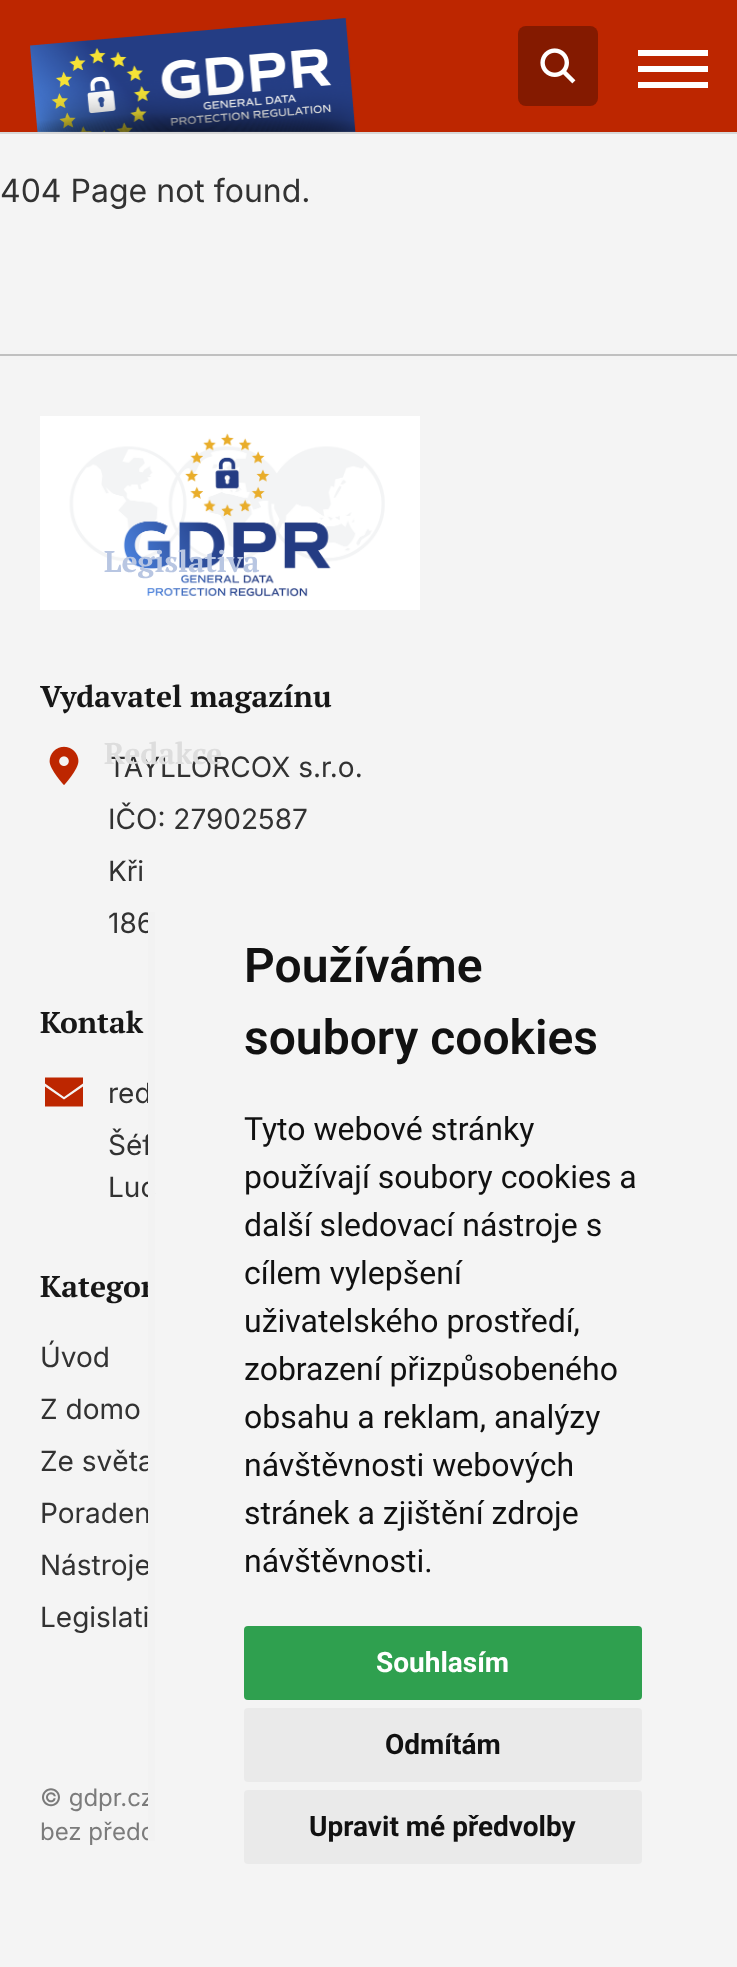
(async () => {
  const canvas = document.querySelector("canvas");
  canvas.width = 737;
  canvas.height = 1967;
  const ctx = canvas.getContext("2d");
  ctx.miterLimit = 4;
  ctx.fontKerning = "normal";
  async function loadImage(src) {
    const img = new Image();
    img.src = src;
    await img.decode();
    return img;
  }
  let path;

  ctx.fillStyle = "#f4f4f4";
  ctx.fillRect(0, 0, 737, 1967);
  ctx.fillStyle = "#bd2600";
  ctx.fillRect(0, 0, 737, 132);
  ctx.fillStyle = "#d7d7d7";
  ctx.fillRect(0, 132, 737, 2);
  ctx.drawImage(await loadImage("img/1.png"), 30, 18, 326, 114);
  ctx.fillStyle = "#841a00";
  ctx.beginPath();
  ctx.roundRect(518, 26, 80, 80, 8);
  ctx.fill();
  ctx.drawImage(await loadImage("img/2.png"), 540, 48, 36, 36);
  for (const [x, y, w, h, color] of [
    [638, 50, 70, 6, "#ffffff"],
    [638, 66, 70, 6, "#ffffff"],
    [638, 82, 70, 6, "#ffffff"],
    [0, 354, 737, 2, "#c0c0c0"],
  ]) {
    ctx.fillStyle = color;
    ctx.fillRect(x, y, w, h);
  }
  ctx.drawImage(await loadImage("img/3.png"), 40, 416, 380, 194);
  ctx.drawImage(await loadImage("img/4.png"), 49, 746, 30, 39);
  ctx.fillStyle = "#bd2600";
  path = new Path2D("M45 1077.5H83V1083.5L64 1097L45 1083.5ZM45 1106.5V1086.5L64 1099.5L83 1086.5V1106.5Z");
  ctx.fill(path);
  ctx.fillStyle = "#2fa04f";
  ctx.beginPath();
  ctx.roundRect(244, 1626, 398, 74, 4);
  ctx.fill();
  ctx.fillStyle = "#eaeaea";
  ctx.beginPath();
  ctx.roundRect(244, 1708, 398, 74, 4);
  ctx.fill();
  ctx.beginPath();
  ctx.roundRect(244, 1790, 398, 74, 4);
  ctx.fill();
  ctx.font = "32px Inter";
  ctx.fillStyle = "#323232";
  ctx.fillText("404 Page not found.", 0, 202);
  ctx.font = "bold 30px PT Serif";
  ctx.fillStyle = "#b8c6e2";
  ctx.fillText("Legislativa", 104, 572);
  ctx.fillStyle = "#171717";
  ctx.fillText("Vydavatel magazínu", 40, 707);
  ctx.font = "28px Inter";
  ctx.fillStyle = "#323232";
  ctx.fillText("TAYLLORCOX s.r.o.", 108, 777);
  ctx.font = "bold 30px PT Serif";
  ctx.fillStyle = "#dddddd";
  ctx.fillText("Redakce", 104, 764);
  ctx.font = "28px Inter";
  ctx.fillStyle = "#323232";
  for (const [text, x, y] of [
    ["IČO: 27902587", 108, 829],
    ["Kři", 108, 881],
    ["186", 108, 933],
  ]) {
    ctx.fillText(text, x, y);
  }
  ctx.font = "bold 30px PT Serif";
  ctx.fillStyle = "#171717";
  ctx.fillText("Kontak", 40, 1033);
  ctx.font = "28px Inter";
  ctx.fillStyle = "#323232";
  for (const [text, x, y] of [
    ["red", 108, 1103],
    ["Šéf", 108, 1155],
    ["Luc", 108, 1197],
  ]) {
    ctx.fillText(text, x, y);
  }
  ctx.font = "bold 30px PT Serif";
  ctx.fillStyle = "#171717";
  ctx.fillText("Kategor", 40, 1297);
  ctx.font = "28px Inter";
  ctx.fillStyle = "#323232";
  for (const [text, x, y] of [
    ["Úvod", 40, 1367],
    ["Z domo", 40, 1419],
    ["Ze světa", 40, 1471],
    ["Poraden", 40, 1523],
    ["Nástroje", 40, 1575],
    ["Legislati", 40, 1627],
  ]) {
    ctx.fillText(text, x, y);
  }
  ctx.font = "24px Inter";
  ctx.fillStyle = "#7b7b7b";
  ctx.fillText("© gdpr.cz", 40, 1806);
  ctx.fillText("bez předc", 40, 1840);
  ctx.fillStyle = "#f2f2f2";
  ctx.fillRect(148, 912, 7, 929);
  ctx.font = "600 48px Roboto";
  ctx.fillStyle = "#111111";
  ctx.fillText("Používáme", 244, 982);
  ctx.fillText("soubory cookies", 244, 1054);
  ctx.font = "32px Roboto";
  for (const [text, x, y] of [
    ["Tyto webové stránky", 244, 1140],
    ["používají soubory cookies a", 244, 1188],
    ["další sledovací nástroje s", 244, 1236],
    ["cílem vylepšení", 244, 1284],
    ["uživatelského prostředí,", 244, 1332],
    ["zobrazení přizpůsobeného", 244, 1380],
    ["obsahu a reklam, analýzy", 244, 1428],
    ["návštěvnosti webových", 244, 1476],
    ["stránek a zjištění zdroje", 244, 1524],
    ["návštěvnosti.", 244, 1572],
  ]) {
    ctx.fillText(text, x, y);
  }
  ctx.font = "bold 28px Roboto";
  ctx.fillStyle = "#ffffff";
  ctx.fillText("Souhlasím", 376, 1672);
  ctx.fillStyle = "#111111";
  ctx.fillText("Odmítám", 385, 1754);
  ctx.fillText("Upravit mé předvolby", 309, 1836);
})();
